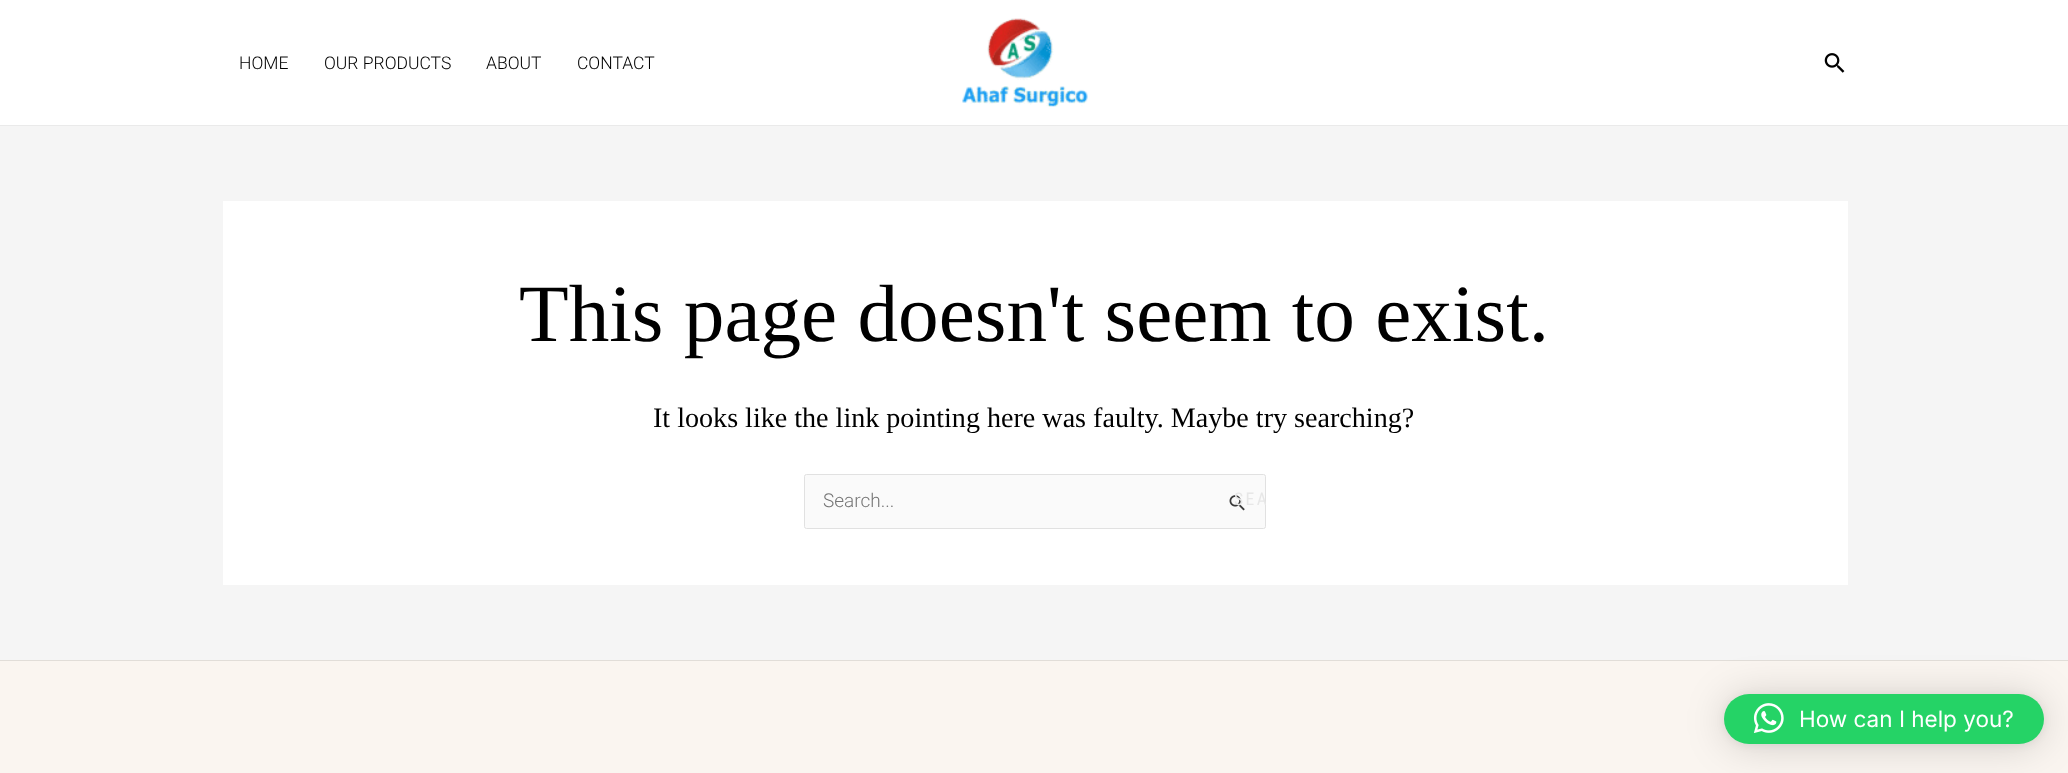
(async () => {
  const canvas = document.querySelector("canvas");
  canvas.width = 2068;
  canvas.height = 773;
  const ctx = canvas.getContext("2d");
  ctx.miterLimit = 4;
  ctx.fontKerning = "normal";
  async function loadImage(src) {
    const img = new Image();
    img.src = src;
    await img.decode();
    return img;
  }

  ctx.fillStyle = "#f5f5f5";
  ctx.fillRect(0, 0, 2068, 773);
  ctx.fillStyle = "#ffffff";
  ctx.fillRect(0, 0, 2068, 125);
  ctx.fillStyle = "#eaeaea";
  ctx.fillRect(0, 125, 2068, 1);
  ctx.drawImage(await loadImage("img/1.png"), 962, 18, 126, 89);
  ctx.drawImage(await loadImage("img/2.png"), 1824, 53, 21, 20);
  ctx.fillStyle = "#ffffff";
  ctx.fillRect(223, 201, 1625, 384);
  ctx.fillStyle = "#fafafa";
  ctx.beginPath();
  ctx.roundRect(804.5, 474.5, 461, 54, 2);
  ctx.fill();
  ctx.strokeStyle = "#e1e1e1";
  ctx.stroke();
  ctx.drawImage(await loadImage("img/3.png"), 1229, 495, 16, 16);
  ctx.fillStyle = "#faf5f0";
  ctx.fillRect(0, 661, 2068, 112);
  ctx.fillStyle = "#e1ddd8";
  ctx.fillRect(0, 660, 2068, 1);
  ctx.fillStyle = "rgba(0, 0, 0, 0.16)";
  ctx.filter = "blur(20px)";
  ctx.beginPath();
  ctx.roundRect(1724, 696, 320, 50, 25);
  ctx.fill();
  ctx.filter = "none";
  ctx.fillStyle = "rgba(0, 0, 0, 0.06)";
  ctx.filter = "blur(4px)";
  ctx.beginPath();
  ctx.roundRect(1724, 695, 320, 50, 25);
  ctx.fill();
  ctx.filter = "none";
  ctx.fillStyle = "#25d366";
  ctx.beginPath();
  ctx.roundRect(1724, 694, 320, 50, 25);
  ctx.fill();
  ctx.drawImage(await loadImage("img/4.png"), 1753, 703, 31, 30);
  ctx.font = "300 17.5px Roboto";
  ctx.fillStyle = "#000000";
  for (const [text, x, y] of [
    ["HOME", 239, 69],
    ["OUR PRODUCTS", 324, 69],
    ["ABOUT", 486, 69],
    ["CONTACT", 577, 69],
  ]) {
    ctx.fillText(text, x, y);
  }
  ctx.font = "81.25px Liberation Serif";
  ctx.fillText("This page doesn't seem to exist.", 519, 341);
  ctx.font = "28.1px Liberation Serif";
  ctx.fillText("It looks like the link pointing here was faulty. Maybe try searching?", 653, 427);
  ctx.font = "300 19px Roboto";
  ctx.fillStyle = "#757575";
  ctx.fillText("Search...", 823, 507);
  ctx.save();
  ctx.beginPath();
  ctx.roundRect(1210, 474, 56, 50, 2.5);
  ctx.clip();
  ctx.letterSpacing = "2.5px";
  ctx.font = "17.5px Roboto Condensed";
  ctx.fillStyle = "#e7e7e7";
  ctx.fillText("SEA", 1234, 505);
  ctx.restore();
  ctx.font = "22.5px Inter";
  ctx.fillStyle = "#ffffff";
  ctx.fillText("How can I help you?", 1799, 727);
})();
